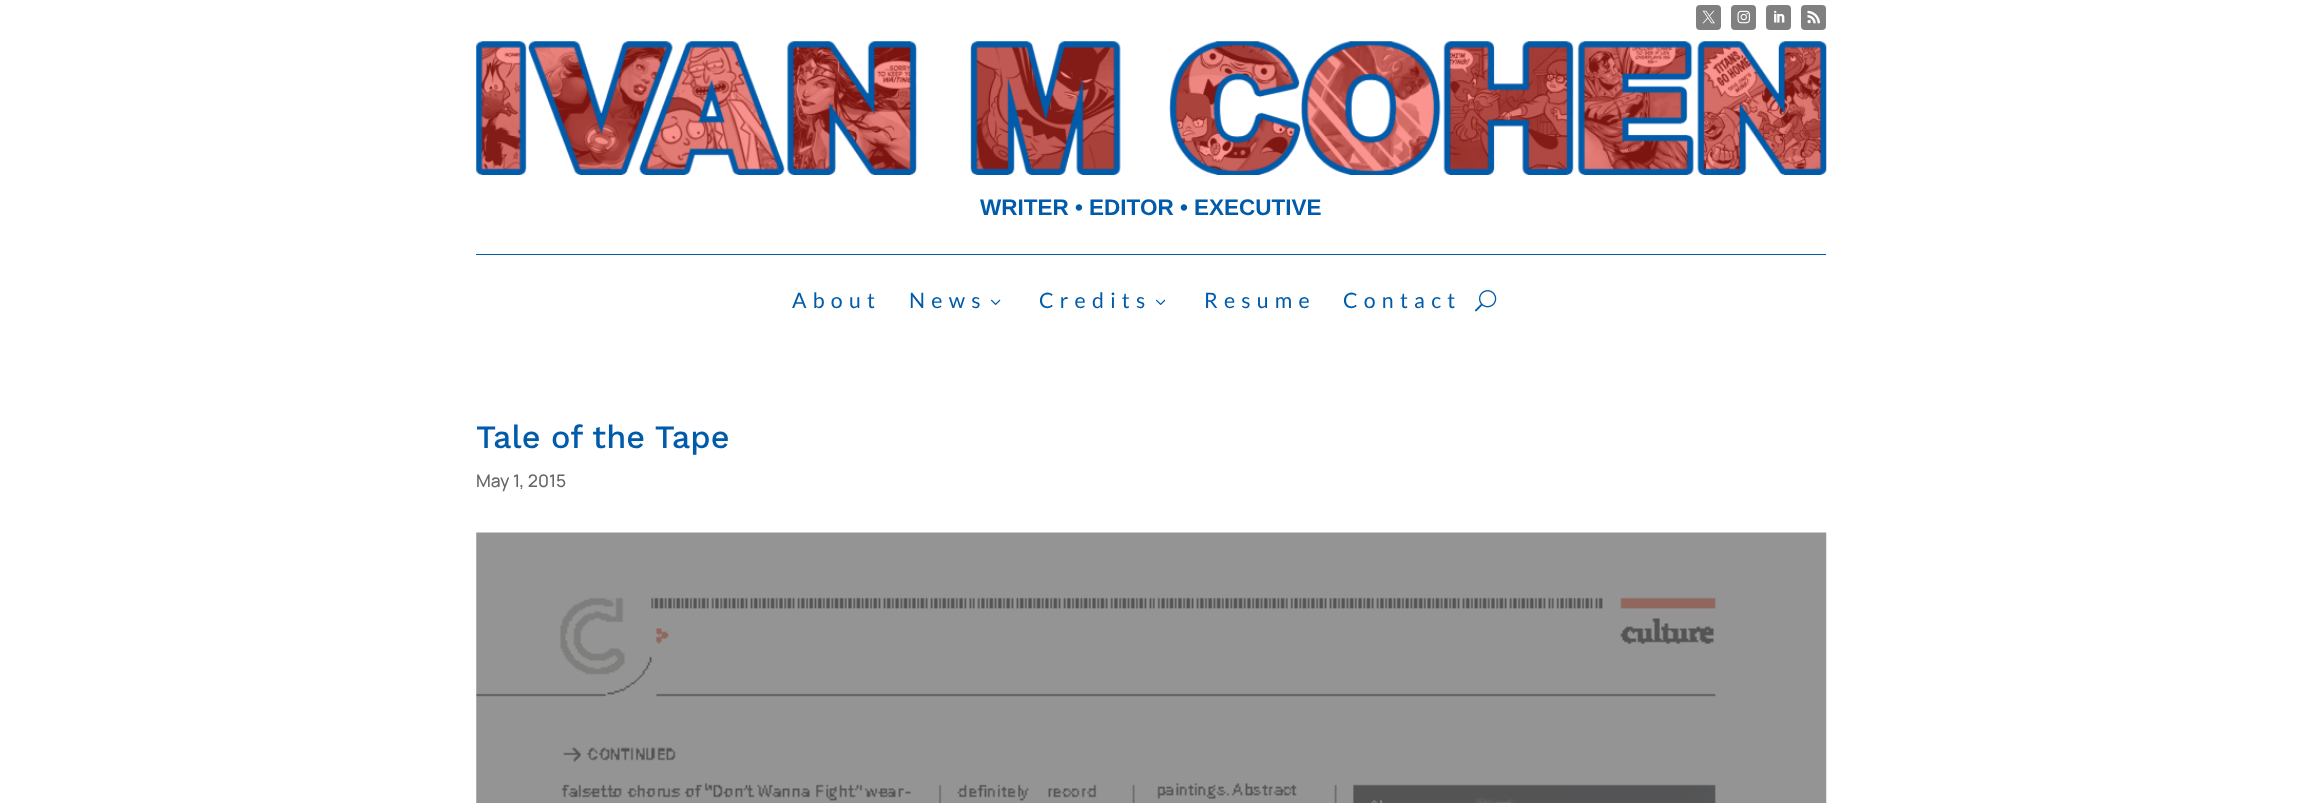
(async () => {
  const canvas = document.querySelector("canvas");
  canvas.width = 2302;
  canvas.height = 803;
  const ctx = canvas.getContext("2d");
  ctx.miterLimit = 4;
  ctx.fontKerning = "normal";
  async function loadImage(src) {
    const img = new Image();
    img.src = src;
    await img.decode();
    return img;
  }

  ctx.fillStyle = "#ffffff";
  ctx.fillRect(0, 0, 2302, 803);
  ctx.fillStyle = "#808080";
  ctx.beginPath();
  ctx.roundRect(1696, 5, 25, 25, 4);
  ctx.fill();
  ctx.drawImage(await loadImage("img/1.png"), 1702, 10, 13, 14);
  ctx.beginPath();
  ctx.roundRect(1731, 5, 25, 25, 4);
  ctx.fill();
  ctx.drawImage(await loadImage("img/2.png"), 1737, 10, 13, 14);
  ctx.beginPath();
  ctx.roundRect(1766, 5, 25, 25, 4);
  ctx.fill();
  ctx.drawImage(await loadImage("img/3.png"), 1774, 10, 11, 13);
  ctx.beginPath();
  ctx.roundRect(1801, 5, 25, 25, 4);
  ctx.fill();
  ctx.drawImage(await loadImage("img/4.png"), 1807, 10, 13, 14);
  ctx.drawImage(await loadImage("img/5.png"), 476, 41, 1351, 134);
  ctx.fillStyle = "#005baa";
  ctx.fillRect(476, 254, 1350, 1);
  ctx.drawImage(await loadImage("img/6.png"), 991, 299, 10, 6);
  ctx.drawImage(await loadImage("img/6.png"), 1156, 299, 10, 6);
  ctx.drawImage(await loadImage("img/7.png"), 1475, 290, 22, 22);
  ctx.drawImage(await loadImage("img/8.png"), 476, 532, 1351, 271);
  ctx.font = "bold 22.5px Liberation Sans";
  ctx.fillText("WRITER • EDITOR • EXECUTIVE", 980, 215);
  ctx.letterSpacing = "6.25px";
  ctx.font = "21.25px Lato";
  for (const [text, x, y] of [
    ["About", 792, 308],
    ["News", 909, 308],
    ["Credits", 1039, 308],
    ["Resume", 1204, 308],
    ["Contact", 1343, 308],
  ]) {
    ctx.fillText(text, x, y);
  }
  ctx.letterSpacing = "0px";
  ctx.font = "500 32.5px Work Sans";
  ctx.fillText("Tale of the Tape", 476, 448);
  ctx.font = "500 17.5px Manrope";
  ctx.fillStyle = "#666666";
  ctx.fillText("May 1, 2015", 476, 487);
})();
